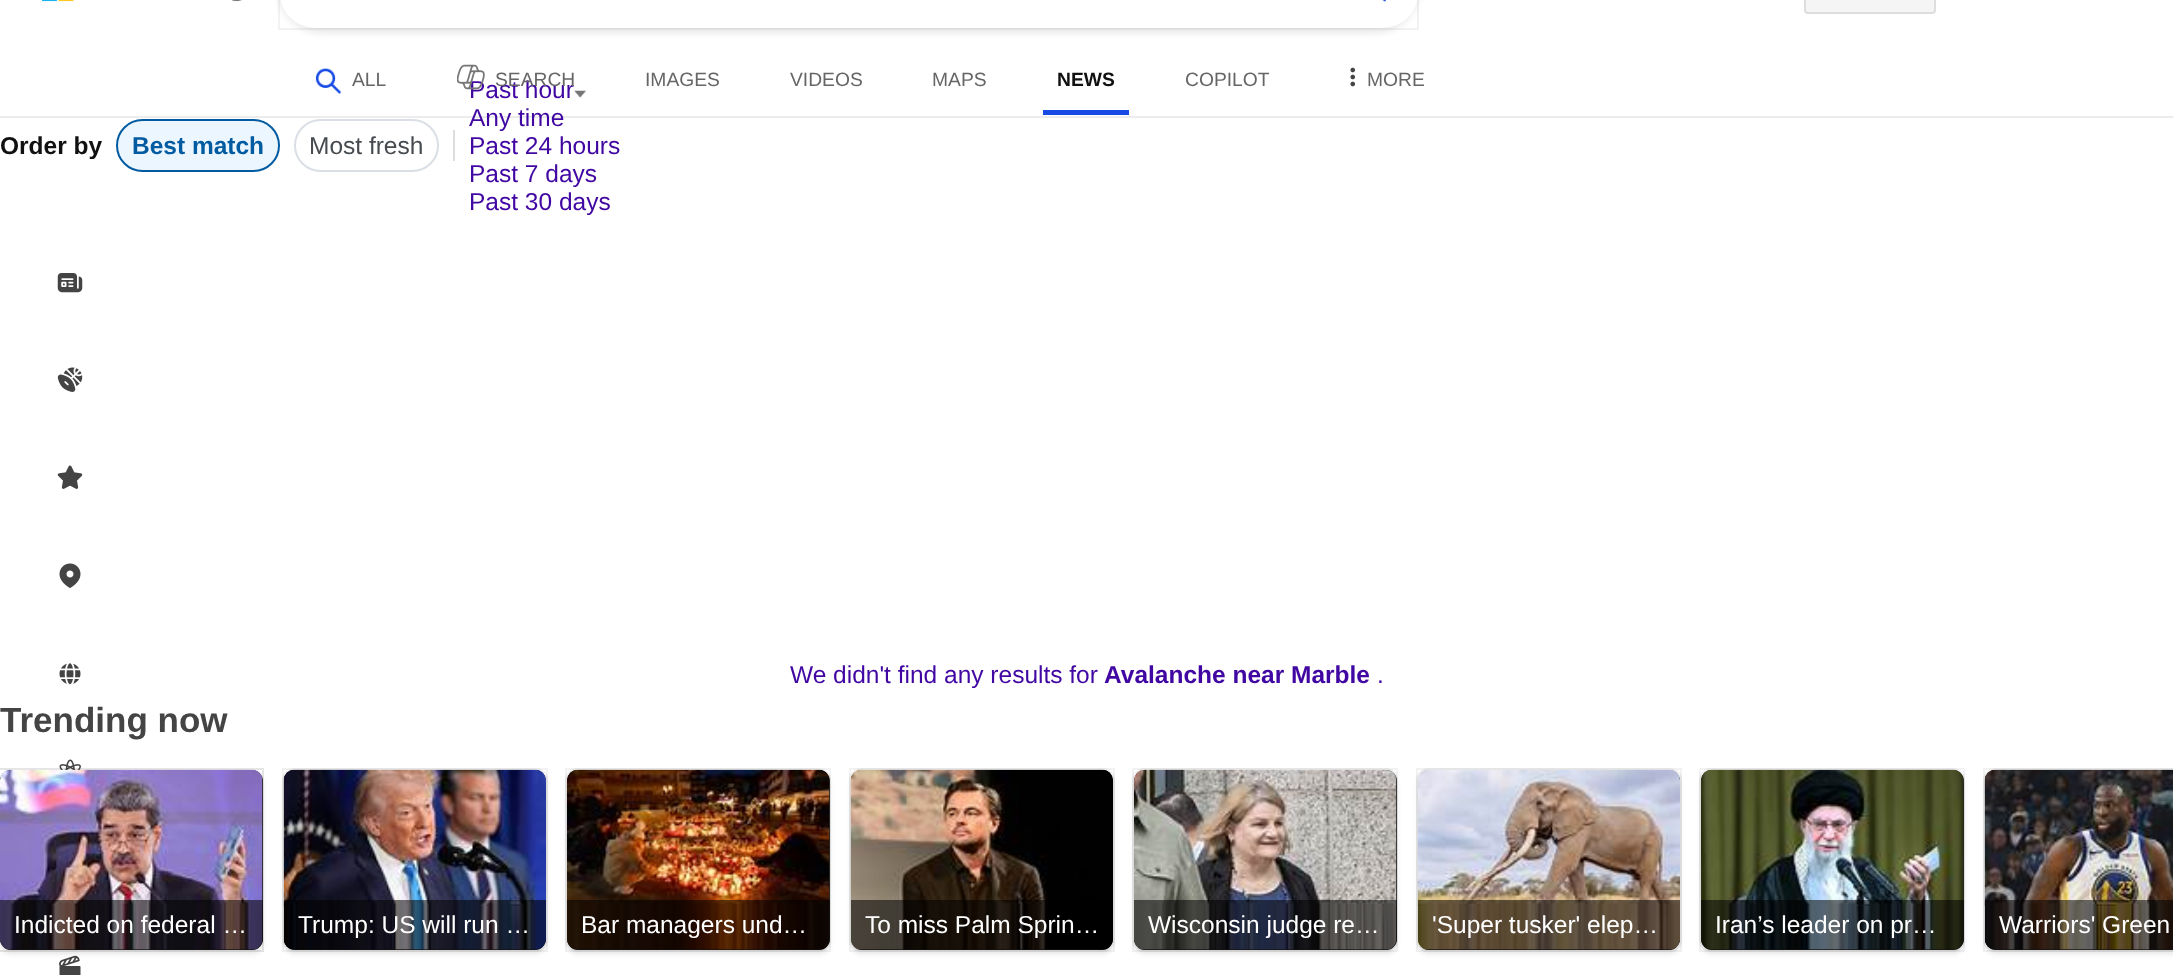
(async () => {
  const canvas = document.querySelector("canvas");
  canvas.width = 2173;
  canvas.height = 975;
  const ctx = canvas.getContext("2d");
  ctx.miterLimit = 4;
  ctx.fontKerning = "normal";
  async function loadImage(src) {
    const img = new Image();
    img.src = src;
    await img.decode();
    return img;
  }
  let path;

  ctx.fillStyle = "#ffffff";
  ctx.fillRect(0, 0, 2173, 975);
  ctx.fillStyle = "#ececec";
  ctx.fillRect(0, 116, 2173, 2);
  ctx.drawImage(await loadImage("img/1.png"), 42, 0, 200, 2);
  ctx.fillStyle = "rgba(0, 0, 0, 0.09)";
  ctx.filter = "blur(3.5px)";
  ctx.beginPath();
  ctx.roundRect(278, -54, 1141, 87, 43.5);
  ctx.fill();
  ctx.filter = "none";
  ctx.strokeStyle = "rgba(0, 0, 0, 0.05)";
  ctx.lineWidth = 2;
  ctx.strokeRect(279, -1, 1139, 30);
  ctx.fillStyle = "#ffffff";
  ctx.beginPath();
  ctx.roundRect(280, -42, 1138, 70, 42);
  ctx.fill();
  ctx.drawImage(await loadImage("img/2.png"), 1382, 0, 4, 2);
  ctx.fillStyle = "#f5f5f5";
  ctx.beginPath();
  ctx.roundRect(1805, -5, 130, 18, 3);
  ctx.fill();
  ctx.strokeStyle = "#dddddd";
  ctx.stroke();
  ctx.drawImage(await loadImage("img/3.png"), 315, 68, 27, 26);
  ctx.fillStyle = "#174ae4";
  ctx.fillRect(1043, 110, 86, 5);
  ctx.drawImage(await loadImage("img/5.png"), 1350, 67, 5, 20);
  ctx.fillStyle = "#ebf6ff";
  ctx.beginPath();
  ctx.roundRect(117, 120, 162, 51, 25.5);
  ctx.fill();
  ctx.strokeStyle = "#005ba1";
  ctx.stroke();
  ctx.beginPath();
  ctx.roundRect(295, 120, 143, 51, 25.5);
  ctx.strokeStyle = "#dadee5";
  ctx.stroke();
  ctx.fillStyle = "#dddddd";
  ctx.fillRect(453, 130, 2, 31);
  ctx.drawImage(await loadImage("img/6.png"), 574, 90, 12, 8);
  ctx.drawImage(await loadImage("img/28.png"), 59, 759, 22, 11);
  ctx.strokeStyle = "rgba(0, 0, 0, 0.05)";
  ctx.strokeRect(-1, 769, 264, 182);
  ctx.drawImage(await loadImage("img/29.png"), 59, 955, 22, 20);
  ctx.fillStyle = "rgba(0, 0, 0, 0.1)";
  ctx.filter = "blur(2.5px)";
  ctx.beginPath();
  ctx.roundRect(0, 774, 263, 180, 11);
  ctx.fill();
  ctx.filter = "none";
  ctx.strokeRect(-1, 769, 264, 182);
  ctx.fillStyle = "#292827";
  ctx.beginPath();
  ctx.roundRect(0, 770, 263, 180, 11);
  ctx.fill();
  ctx.drawImage(await loadImage("img/8.png"), 0, 901, 263, 49);
  ctx.drawImage(await loadImage("img/7.png"), 0, 769, 263, 137);
  ctx.fillStyle = "rgba(0, 0, 0, 0.55)";
  ctx.beginPath();
  ctx.roundRect(0, 900, 263, 50, [0, 0, 11, 11]);
  ctx.fill();
  ctx.beginPath();
  ctx.roundRect(283, 769, 264, 182, 11);
  ctx.strokeStyle = "#f2f2f2";
  ctx.stroke();
  ctx.fillStyle = "rgba(0, 0, 0, 0.1)";
  ctx.filter = "blur(2.5px)";
  ctx.beginPath();
  ctx.roundRect(284, 774, 262, 180, 11);
  ctx.fill();
  ctx.filter = "none";
  ctx.strokeStyle = "rgba(0, 0, 0, 0.05)";
  ctx.strokeRect(283, 769, 264, 182);
  ctx.fillStyle = "#292827";
  ctx.beginPath();
  ctx.roundRect(284, 770, 262, 180, 11);
  ctx.fill();
  ctx.drawImage(await loadImage("img/10.png"), 283, 901, 263, 49);
  ctx.drawImage(await loadImage("img/9.png"), 283, 769, 263, 137);
  ctx.fillStyle = "rgba(0, 0, 0, 0.55)";
  ctx.beginPath();
  ctx.roundRect(284, 900, 262, 50, [0, 0, 11, 11]);
  ctx.fill();
  ctx.beginPath();
  ctx.roundRect(566, 769, 264, 182, 11);
  ctx.strokeStyle = "#f2f2f2";
  ctx.stroke();
  ctx.fillStyle = "rgba(0, 0, 0, 0.1)";
  ctx.filter = "blur(2.5px)";
  ctx.beginPath();
  ctx.roundRect(567, 774, 263, 180, 11);
  ctx.fill();
  ctx.filter = "none";
  ctx.strokeStyle = "rgba(0, 0, 0, 0.05)";
  ctx.strokeRect(566, 769, 264, 182);
  ctx.fillStyle = "#292827";
  ctx.beginPath();
  ctx.roundRect(567, 770, 263, 180, 11);
  ctx.fill();
  ctx.drawImage(await loadImage("img/11.png"), 567, 769, 263, 137);
  ctx.drawImage(await loadImage("img/12.png"), 567, 906, 262, 44);
  ctx.fillStyle = "rgba(0, 0, 0, 0.55)";
  ctx.beginPath();
  ctx.roundRect(567, 900, 263, 50, [0, 0, 11, 11]);
  ctx.fill();
  ctx.beginPath();
  ctx.roundRect(850, 769, 264, 182, 11);
  ctx.strokeStyle = "#f2f2f2";
  ctx.stroke();
  ctx.fillStyle = "rgba(0, 0, 0, 0.1)";
  ctx.filter = "blur(2.5px)";
  ctx.beginPath();
  ctx.roundRect(851, 774, 262, 180, 11);
  ctx.fill();
  ctx.filter = "none";
  ctx.strokeStyle = "rgba(0, 0, 0, 0.05)";
  ctx.strokeRect(850, 769, 264, 182);
  ctx.fillStyle = "#292827";
  ctx.beginPath();
  ctx.roundRect(851, 770, 262, 180, 11);
  ctx.fill();
  ctx.drawImage(await loadImage("img/14.png"), 850, 901, 263, 49);
  ctx.drawImage(await loadImage("img/13.png"), 850, 769, 263, 137);
  ctx.fillStyle = "rgba(0, 0, 0, 0.55)";
  ctx.beginPath();
  ctx.roundRect(851, 900, 262, 50, [0, 0, 11, 11]);
  ctx.fill();
  ctx.beginPath();
  ctx.roundRect(1133, 769, 264, 182, 11);
  ctx.strokeStyle = "#f2f2f2";
  ctx.stroke();
  ctx.fillStyle = "rgba(0, 0, 0, 0.1)";
  ctx.filter = "blur(2.5px)";
  ctx.beginPath();
  ctx.roundRect(1134, 774, 263, 180, 11);
  ctx.fill();
  ctx.filter = "none";
  ctx.strokeStyle = "rgba(0, 0, 0, 0.05)";
  ctx.strokeRect(1133, 769, 264, 182);
  ctx.fillStyle = "#292827";
  ctx.beginPath();
  ctx.roundRect(1134, 770, 263, 180, 11);
  ctx.fill();
  ctx.drawImage(await loadImage("img/16.png"), 1134, 901, 263, 49);
  ctx.drawImage(await loadImage("img/15.png"), 1134, 769, 263, 137);
  ctx.fillStyle = "rgba(0, 0, 0, 0.55)";
  ctx.beginPath();
  ctx.roundRect(1134, 900, 263, 50, [0, 0, 11, 11]);
  ctx.fill();
  ctx.beginPath();
  ctx.roundRect(1417, 769, 264, 182, 11);
  ctx.strokeStyle = "#f2f2f2";
  ctx.stroke();
  ctx.fillStyle = "rgba(0, 0, 0, 0.1)";
  ctx.filter = "blur(2.5px)";
  ctx.beginPath();
  ctx.roundRect(1418, 774, 262, 180, 11);
  ctx.fill();
  ctx.filter = "none";
  ctx.strokeStyle = "rgba(0, 0, 0, 0.05)";
  ctx.strokeRect(1417, 769, 264, 182);
  ctx.fillStyle = "#292827";
  ctx.beginPath();
  ctx.roundRect(1418, 770, 262, 180, 11);
  ctx.fill();
  ctx.drawImage(await loadImage("img/18.png"), 1417, 901, 263, 49);
  ctx.drawImage(await loadImage("img/17.png"), 1417, 769, 263, 137);
  ctx.fillStyle = "rgba(0, 0, 0, 0.55)";
  ctx.beginPath();
  ctx.roundRect(1418, 900, 262, 50, [0, 0, 11, 11]);
  ctx.fill();
  ctx.beginPath();
  ctx.roundRect(1700, 769, 264, 182, 11);
  ctx.strokeStyle = "#f2f2f2";
  ctx.stroke();
  ctx.fillStyle = "rgba(0, 0, 0, 0.1)";
  ctx.filter = "blur(2.5px)";
  ctx.beginPath();
  ctx.roundRect(1701, 774, 263, 180, 11);
  ctx.fill();
  ctx.filter = "none";
  ctx.strokeStyle = "rgba(0, 0, 0, 0.05)";
  ctx.strokeRect(1700, 769, 264, 182);
  ctx.fillStyle = "#292827";
  ctx.beginPath();
  ctx.roundRect(1701, 770, 263, 180, 11);
  ctx.fill();
  ctx.drawImage(await loadImage("img/19.png"), 1701, 769, 263, 137);
  ctx.drawImage(await loadImage("img/20.png"), 1701, 906, 262, 44);
  ctx.fillStyle = "rgba(0, 0, 0, 0.55)";
  ctx.beginPath();
  ctx.roundRect(1701, 900, 263, 50, [0, 0, 11, 11]);
  ctx.fill();
  ctx.beginPath();
  ctx.roundRect(1984, 769, 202, 182, 11);
  ctx.strokeStyle = "#f2f2f2";
  ctx.stroke();
  ctx.fillStyle = "rgba(0, 0, 0, 0.1)";
  ctx.filter = "blur(2.5px)";
  ctx.beginPath();
  ctx.roundRect(1985, 774, 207, 180, 11);
  ctx.fill();
  ctx.filter = "none";
  ctx.strokeStyle = "rgba(0, 0, 0, 0.05)";
  ctx.strokeRect(1984, 769, 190, 182);
  ctx.fillStyle = "#292827";
  path = new Path2D("M1996 770H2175V950H1996C1990 950 1985 945 1985 939V781C1985 775 1990 770 1996 770Z");
  ctx.fill(path);
  ctx.drawImage(await loadImage("img/22.png"), 1984, 901, 189, 49);
  ctx.drawImage(await loadImage("img/21.png"), 1984, 769, 189, 137);
  ctx.fillStyle = "rgba(0, 0, 0, 0.55)";
  path = new Path2D("M1985 900H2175V950H1996C1990 950 1985 945 1985 939Z");
  ctx.fill(path);
  ctx.drawImage(await loadImage("img/23.png"), 57, 273, 26, 20);
  ctx.drawImage(await loadImage("img/24.png"), 57, 367, 26, 25);
  ctx.drawImage(await loadImage("img/25.png"), 57, 465, 26, 24);
  ctx.drawImage(await loadImage("img/26.png"), 59, 563, 22, 25);
  ctx.drawImage(await loadImage("img/27.png"), 59, 663, 22, 22);
  ctx.font = "19.25px Liberation Sans";
  ctx.fillStyle = "#666666";
  for (const [text, x, y] of [
    ["ALL", 352, 86],
    ["IMAGES", 645, 86],
    ["VIDEOS", 790, 86],
    ["MAPS", 932, 86],
  ]) {
    ctx.fillText(text, x, y);
  }
  ctx.font = "bold 19.25px Liberation Sans";
  ctx.fillStyle = "#111111";
  ctx.fillText("NEWS", 1057, 86);
  ctx.font = "19.25px Liberation Sans";
  ctx.fillStyle = "#666666";
  ctx.fillText("COPILOT", 1185, 86);
  ctx.fillText("MORE", 1367, 86);
  ctx.font = "bold 24.5px Liberation Sans";
  ctx.fillStyle = "#111111";
  ctx.fillText("Order by", 0, 154);
  ctx.fillStyle = "#005ba1";
  ctx.fillText("Best match", 132, 154);
  ctx.font = "24.5px Liberation Sans";
  ctx.fillStyle = "#474b50";
  ctx.fillText("Most fresh", 309, 154);
  ctx.fillStyle = "#4007a2";
  ctx.fillText("Past hour", 469, 98);
  ctx.drawImage(await loadImage("img/4.png"), 457, 64, 28, 26);
  ctx.font = "19.25px Liberation Sans";
  ctx.fillStyle = "#666666";
  ctx.fillText("SEARCH", 495, 86);
  ctx.font = "24.5px Liberation Sans";
  ctx.fillStyle = "#4007a2";
  for (const [text, x, y] of [
    ["Any time", 469, 126],
    ["Past 24 hours", 469, 154],
    ["Past 7 days", 469, 182],
    ["Past 30 days", 469, 210],
    ["We didn't find any results for", 790, 683],
  ]) {
    ctx.fillText(text, x, y);
  }
  ctx.font = "bold 24.5px Liberation Sans";
  ctx.fillText("Avalanche near Marble", 1104, 683);
  ctx.font = "24.5px Liberation Sans";
  ctx.fillText(".", 1377, 683);
  ctx.font = "bold 35px Liberation Sans";
  ctx.fillStyle = "#444444";
  ctx.fillText("Trending now", 0, 732);
  ctx.font = "24.5px Liberation Sans";
  ctx.fillStyle = "#ffffff";
  for (const [text, x, y] of [
    ["Indicted on federal …", 14, 933],
    ["Trump: US will run …", 298, 933],
    ["Bar managers und…", 581, 933],
    ["To miss Palm Sprin…", 865, 933],
    ["Wisconsin judge re…", 1148, 933],
    ["'Super tusker' elep…", 1432, 933],
    ["Iran’s leader on pr…", 1715, 933],
    ["Warriors' Green", 1999, 933],
  ]) {
    ctx.fillText(text, x, y);
  }
})();
